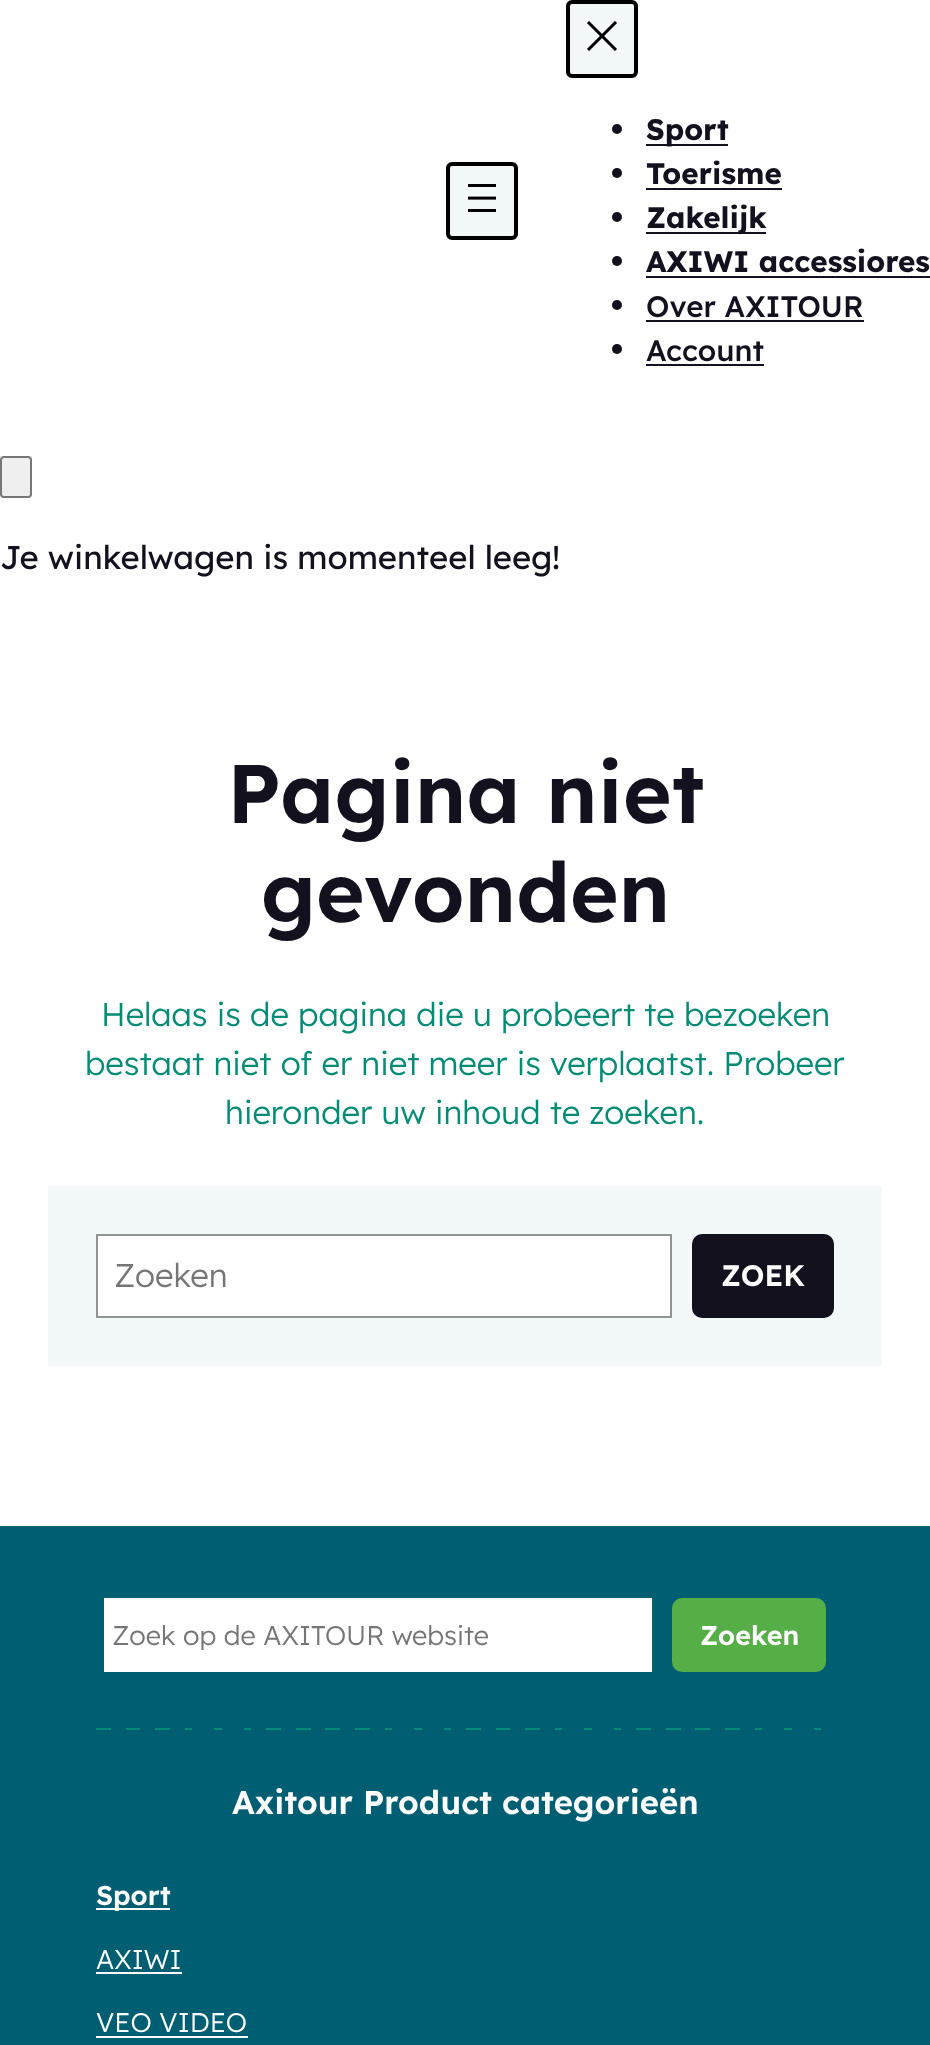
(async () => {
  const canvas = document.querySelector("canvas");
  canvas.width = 930;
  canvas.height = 2045;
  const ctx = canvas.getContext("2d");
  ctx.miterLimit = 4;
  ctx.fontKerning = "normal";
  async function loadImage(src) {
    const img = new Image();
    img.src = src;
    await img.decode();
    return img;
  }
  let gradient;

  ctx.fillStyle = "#ffffff";
  ctx.fillRect(0, 0, 930, 2045);
  ctx.fillStyle = "#f3f8f8";
  ctx.beginPath();
  ctx.roundRect(448, 164, 68, 74, 4);
  ctx.fill();
  ctx.strokeStyle = "#000000";
  ctx.lineWidth = 4;
  ctx.stroke();
  ctx.drawImage(await loadImage("img/1.png"), 468, 184, 28, 28);
  ctx.beginPath();
  ctx.roundRect(568, 2, 68, 74, 4);
  ctx.fill();
  ctx.stroke();
  ctx.drawImage(await loadImage("img/2.png"), 587, 21, 30, 30);
  ctx.fillStyle = "#14111f";
  ctx.beginPath();
  ctx.arc(617, 129, 5, 0, Math.PI * 2);
  ctx.fill();
  ctx.fillRect(646, 144, 82, 2);
  ctx.beginPath();
  ctx.arc(617, 173, 5, 0, Math.PI * 2);
  ctx.fill();
  ctx.fillRect(646, 188, 136, 2);
  ctx.beginPath();
  ctx.arc(617, 217, 5, 0, Math.PI * 2);
  ctx.fill();
  ctx.fillRect(646, 232, 120, 2);
  ctx.beginPath();
  ctx.arc(617, 261, 5, 0, Math.PI * 2);
  ctx.fill();
  ctx.fillRect(646, 276, 284, 2);
  ctx.beginPath();
  ctx.arc(617, 305, 5, 0, Math.PI * 2);
  ctx.fill();
  ctx.fillRect(646, 320, 218, 2);
  ctx.beginPath();
  ctx.arc(617, 349, 5, 0, Math.PI * 2);
  ctx.fill();
  ctx.fillRect(646, 364, 118, 2);
  ctx.fillStyle = "#efefef";
  ctx.beginPath();
  ctx.roundRect(1, 457, 30, 40, 3);
  ctx.fill();
  ctx.strokeStyle = "#767676";
  ctx.lineWidth = 2;
  ctx.stroke();
  ctx.fillStyle = "#f3f8f8";
  ctx.fillRect(48, 1186, 834, 180);
  ctx.fillStyle = "#ffffff";
  ctx.beginPath();
  ctx.rect(97, 1235, 574, 82);
  ctx.fill();
  ctx.strokeStyle = "#949494";
  ctx.stroke();
  ctx.fillStyle = "#14111f";
  ctx.beginPath();
  ctx.roundRect(692, 1234, 142, 84, 10);
  ctx.fill();
  ctx.fillStyle = "#005e72";
  ctx.fillRect(0, 1526, 930, 519);
  ctx.fillStyle = "#ffffff";
  ctx.fillRect(104, 1598, 548, 74);
  ctx.fillStyle = "#56ae47";
  ctx.beginPath();
  ctx.roundRect(672, 1598, 154, 74, 10);
  ctx.fill();
  gradient = ctx.createLinearGradient(96, 1729, 836, 1729);
  gradient.addColorStop(0, "#048b75");
  gradient.addColorStop(0.01, "#048b75");
  gradient.addColorStop(0.01, "#005e72");
  gradient.addColorStop(0.01, "#048b75");
  gradient.addColorStop(0.02, "#048b75");
  gradient.addColorStop(0.02, "#005e72");
  gradient.addColorStop(0.03, "#005e72");
  gradient.addColorStop(0.03, "#048b75");
  gradient.addColorStop(0.03, "#005e72");
  gradient.addColorStop(0.04, "#005e72");
  gradient.addColorStop(0.04, "#048b75");
  gradient.addColorStop(0.05, "#048b75");
  gradient.addColorStop(0.05, "#005e72");
  gradient.addColorStop(0.05, "#048b75");
  gradient.addColorStop(0.06, "#048b75");
  gradient.addColorStop(0.06, "#005e72");
  gradient.addColorStop(0.07, "#005e72");
  gradient.addColorStop(0.07, "#048b75");
  gradient.addColorStop(0.07, "#005e72");
  gradient.addColorStop(0.08, "#005e72");
  gradient.addColorStop(0.08, "#048b75");
  gradient.addColorStop(0.09, "#048b75");
  gradient.addColorStop(0.09, "#005e72");
  gradient.addColorStop(0.09, "#048b75");
  gradient.addColorStop(0.1, "#048b75");
  gradient.addColorStop(0.1, "#005e72");
  gradient.addColorStop(0.11, "#005e72");
  gradient.addColorStop(0.11, "#048b75");
  gradient.addColorStop(0.11, "#005e72");
  gradient.addColorStop(0.12, "#005e72");
  gradient.addColorStop(0.12, "#048b75");
  gradient.addColorStop(0.13, "#048b75");
  gradient.addColorStop(0.13, "#005e72");
  gradient.addColorStop(0.14, "#005e72");
  gradient.addColorStop(0.14, "#048b75");
  gradient.addColorStop(0.14, "#005e72");
  gradient.addColorStop(0.15, "#005e72");
  gradient.addColorStop(0.15, "#048b75");
  gradient.addColorStop(0.15, "#005e72");
  gradient.addColorStop(0.16, "#005e72");
  gradient.addColorStop(0.16, "#048b75");
  gradient.addColorStop(0.17, "#048b75");
  gradient.addColorStop(0.17, "#005e72");
  gradient.addColorStop(0.18, "#005e72");
  gradient.addColorStop(0.18, "#048b75");
  gradient.addColorStop(0.18, "#005e72");
  gradient.addColorStop(0.19, "#005e72");
  gradient.addColorStop(0.19, "#048b75");
  gradient.addColorStop(0.19, "#005e72");
  gradient.addColorStop(0.2, "#005e72");
  gradient.addColorStop(0.2, "#048b75");
  gradient.addColorStop(0.21, "#048b75");
  gradient.addColorStop(0.21, "#005e72");
  gradient.addColorStop(0.22, "#005e72");
  gradient.addColorStop(0.22, "#048b75");
  gradient.addColorStop(0.22, "#005e72");
  gradient.addColorStop(0.23, "#005e72");
  gradient.addColorStop(0.23, "#048b75");
  gradient.addColorStop(0.24, "#048b75");
  gradient.addColorStop(0.24, "#005e72");
  gradient.addColorStop(0.24, "#048b75");
  gradient.addColorStop(0.25, "#048b75");
  gradient.addColorStop(0.25, "#005e72");
  gradient.addColorStop(0.26, "#005e72");
  gradient.addColorStop(0.26, "#048b75");
  gradient.addColorStop(0.26, "#005e72");
  gradient.addColorStop(0.27, "#005e72");
  gradient.addColorStop(0.27, "#048b75");
  gradient.addColorStop(0.28, "#048b75");
  gradient.addColorStop(0.28, "#005e72");
  gradient.addColorStop(0.28, "#048b75");
  gradient.addColorStop(0.29, "#048b75");
  gradient.addColorStop(0.29, "#005e72");
  gradient.addColorStop(0.3, "#005e72");
  gradient.addColorStop(0.3, "#048b75");
  gradient.addColorStop(0.3, "#005e72");
  gradient.addColorStop(0.31, "#005e72");
  gradient.addColorStop(0.31, "#048b75");
  gradient.addColorStop(0.32, "#048b75");
  gradient.addColorStop(0.32, "#005e72");
  gradient.addColorStop(0.32, "#048b75");
  gradient.addColorStop(0.33, "#048b75");
  gradient.addColorStop(0.33, "#005e72");
  gradient.addColorStop(0.34, "#005e72");
  gradient.addColorStop(0.34, "#048b75");
  gradient.addColorStop(0.34, "#005e72");
  gradient.addColorStop(0.35, "#005e72");
  gradient.addColorStop(0.35, "#048b75");
  gradient.addColorStop(0.36, "#048b75");
  gradient.addColorStop(0.36, "#005e72");
  gradient.addColorStop(0.36, "#048b75");
  gradient.addColorStop(0.37, "#048b75");
  gradient.addColorStop(0.37, "#005e72");
  gradient.addColorStop(0.38, "#005e72");
  gradient.addColorStop(0.38, "#048b75");
  gradient.addColorStop(0.38, "#005e72");
  gradient.addColorStop(0.39, "#005e72");
  gradient.addColorStop(0.39, "#048b75");
  gradient.addColorStop(0.4, "#048b75");
  gradient.addColorStop(0.4, "#005e72");
  gradient.addColorStop(0.41, "#005e72");
  gradient.addColorStop(0.41, "#048b75");
  gradient.addColorStop(0.41, "#005e72");
  gradient.addColorStop(0.42, "#005e72");
  gradient.addColorStop(0.42, "#048b75");
  gradient.addColorStop(0.42, "#005e72");
  gradient.addColorStop(0.43, "#005e72");
  gradient.addColorStop(0.43, "#048b75");
  gradient.addColorStop(0.44, "#048b75");
  gradient.addColorStop(0.44, "#005e72");
  gradient.addColorStop(0.45, "#005e72");
  gradient.addColorStop(0.45, "#048b75");
  gradient.addColorStop(0.45, "#005e72");
  gradient.addColorStop(0.46, "#005e72");
  gradient.addColorStop(0.46, "#048b75");
  gradient.addColorStop(0.46, "#005e72");
  gradient.addColorStop(0.47, "#005e72");
  gradient.addColorStop(0.47, "#048b75");
  gradient.addColorStop(0.48, "#048b75");
  gradient.addColorStop(0.48, "#005e72");
  gradient.addColorStop(0.49, "#005e72");
  gradient.addColorStop(0.49, "#048b75");
  gradient.addColorStop(0.49, "#005e72");
  gradient.addColorStop(0.5, "#005e72");
  gradient.addColorStop(0.5, "#048b75");
  gradient.addColorStop(0.51, "#048b75");
  gradient.addColorStop(0.51, "#005e72");
  gradient.addColorStop(0.51, "#048b75");
  gradient.addColorStop(0.52, "#048b75");
  gradient.addColorStop(0.52, "#005e72");
  gradient.addColorStop(0.53, "#005e72");
  gradient.addColorStop(0.53, "#048b75");
  gradient.addColorStop(0.53, "#005e72");
  gradient.addColorStop(0.54, "#005e72");
  gradient.addColorStop(0.54, "#048b75");
  gradient.addColorStop(0.55, "#048b75");
  gradient.addColorStop(0.55, "#005e72");
  gradient.addColorStop(0.55, "#048b75");
  gradient.addColorStop(0.56, "#048b75");
  gradient.addColorStop(0.56, "#005e72");
  gradient.addColorStop(0.57, "#005e72");
  gradient.addColorStop(0.57, "#048b75");
  gradient.addColorStop(0.57, "#005e72");
  gradient.addColorStop(0.58, "#005e72");
  gradient.addColorStop(0.58, "#048b75");
  gradient.addColorStop(0.59, "#048b75");
  gradient.addColorStop(0.59, "#005e72");
  gradient.addColorStop(0.59, "#048b75");
  gradient.addColorStop(0.6, "#048b75");
  gradient.addColorStop(0.6, "#005e72");
  gradient.addColorStop(0.61, "#005e72");
  gradient.addColorStop(0.61, "#048b75");
  gradient.addColorStop(0.61, "#005e72");
  gradient.addColorStop(0.62, "#005e72");
  gradient.addColorStop(0.62, "#048b75");
  gradient.addColorStop(0.63, "#048b75");
  gradient.addColorStop(0.63, "#005e72");
  gradient.addColorStop(0.64, "#005e72");
  gradient.addColorStop(0.64, "#048b75");
  gradient.addColorStop(0.64, "#005e72");
  gradient.addColorStop(0.65, "#005e72");
  gradient.addColorStop(0.65, "#048b75");
  gradient.addColorStop(0.65, "#005e72");
  gradient.addColorStop(0.66, "#005e72");
  gradient.addColorStop(0.66, "#048b75");
  gradient.addColorStop(0.67, "#048b75");
  gradient.addColorStop(0.67, "#005e72");
  gradient.addColorStop(0.68, "#005e72");
  gradient.addColorStop(0.68, "#048b75");
  gradient.addColorStop(0.68, "#005e72");
  gradient.addColorStop(0.69, "#005e72");
  gradient.addColorStop(0.69, "#048b75");
  gradient.addColorStop(0.69, "#005e72");
  gradient.addColorStop(0.7, "#005e72");
  gradient.addColorStop(0.7, "#048b75");
  gradient.addColorStop(0.71, "#048b75");
  gradient.addColorStop(0.71, "#005e72");
  gradient.addColorStop(0.72, "#005e72");
  gradient.addColorStop(0.72, "#048b75");
  gradient.addColorStop(0.72, "#005e72");
  gradient.addColorStop(0.73, "#005e72");
  gradient.addColorStop(0.73, "#048b75");
  gradient.addColorStop(0.74, "#048b75");
  gradient.addColorStop(0.74, "#005e72");
  gradient.addColorStop(0.74, "#048b75");
  gradient.addColorStop(0.75, "#048b75");
  gradient.addColorStop(0.75, "#005e72");
  gradient.addColorStop(0.76, "#005e72");
  gradient.addColorStop(0.76, "#048b75");
  gradient.addColorStop(0.76, "#005e72");
  gradient.addColorStop(0.77, "#005e72");
  gradient.addColorStop(0.77, "#048b75");
  gradient.addColorStop(0.78, "#048b75");
  gradient.addColorStop(0.78, "#005e72");
  gradient.addColorStop(0.78, "#048b75");
  gradient.addColorStop(0.79, "#048b75");
  gradient.addColorStop(0.79, "#005e72");
  gradient.addColorStop(0.8, "#005e72");
  gradient.addColorStop(0.8, "#048b75");
  gradient.addColorStop(0.8, "#005e72");
  gradient.addColorStop(0.81, "#005e72");
  gradient.addColorStop(0.81, "#048b75");
  gradient.addColorStop(0.82, "#048b75");
  gradient.addColorStop(0.82, "#005e72");
  gradient.addColorStop(0.82, "#048b75");
  gradient.addColorStop(0.83, "#048b75");
  gradient.addColorStop(0.83, "#005e72");
  gradient.addColorStop(0.84, "#005e72");
  gradient.addColorStop(0.84, "#048b75");
  gradient.addColorStop(0.84, "#005e72");
  gradient.addColorStop(0.85, "#005e72");
  gradient.addColorStop(0.85, "#048b75");
  gradient.addColorStop(0.86, "#048b75");
  gradient.addColorStop(0.86, "#005e72");
  gradient.addColorStop(0.86, "#048b75");
  gradient.addColorStop(0.87, "#048b75");
  gradient.addColorStop(0.87, "#005e72");
  gradient.addColorStop(0.88, "#005e72");
  gradient.addColorStop(0.88, "#048b75");
  gradient.addColorStop(0.88, "#005e72");
  gradient.addColorStop(0.89, "#005e72");
  gradient.addColorStop(0.89, "#048b75");
  gradient.addColorStop(0.9, "#048b75");
  gradient.addColorStop(0.9, "#005e72");
  gradient.addColorStop(0.91, "#005e72");
  gradient.addColorStop(0.91, "#048b75");
  gradient.addColorStop(0.91, "#005e72");
  gradient.addColorStop(0.92, "#005e72");
  gradient.addColorStop(0.92, "#048b75");
  gradient.addColorStop(0.92, "#005e72");
  gradient.addColorStop(0.93, "#005e72");
  gradient.addColorStop(0.93, "#048b75");
  gradient.addColorStop(0.94, "#048b75");
  gradient.addColorStop(0.94, "#005e72");
  gradient.addColorStop(0.95, "#005e72");
  gradient.addColorStop(0.95, "#048b75");
  gradient.addColorStop(0.95, "#005e72");
  gradient.addColorStop(0.96, "#005e72");
  gradient.addColorStop(0.96, "#048b75");
  gradient.addColorStop(0.96, "#005e72");
  gradient.addColorStop(0.97, "#005e72");
  gradient.addColorStop(0.97, "#048b75");
  gradient.addColorStop(0.98, "#048b75");
  gradient.addColorStop(0.98, "#005e72");
  gradient.addColorStop(0.99, "#005e72");
  gradient.addColorStop(0.99, "#048b75");
  gradient.addColorStop(0.99, "#005e72");
  gradient.addColorStop(1, "#005e72");
  ctx.fillStyle = gradient;
  ctx.fillRect(96, 1728, 725, 2);
  for (const [x, y, w, h, color] of [
    [96, 1908, 74, 2, "#ffffff"],
    [96, 1972, 86, 2, "#ffffff"],
    [96, 2036, 152, 2, "#ffffff"],
  ]) {
    ctx.fillStyle = color;
    ctx.fillRect(x, y, w, h);
  }
  ctx.font = "bold 29.5px Lexend";
  ctx.fillStyle = "#14111f";
  for (const [text, x, y] of [
    ["Sport", 646, 140],
    ["Toerisme", 646, 184],
    ["Zakelijk", 646, 228],
    ["AXIWI accessiores", 646, 272],
  ]) {
    ctx.fillText(text, x, y);
  }
  ctx.font = "500 29.5px Lexend";
  ctx.fillText("Over AXITOUR", 646, 317);
  ctx.fillText("Account", 646, 361);
  ctx.font = "32.8px Lexend";
  ctx.fillText("Je winkelwagen is momenteel leeg!", 0, 569);
  ctx.font = "600 83px Lexend";
  ctx.fillText("Pagina niet", 227, 823);
  ctx.fillText("gevonden", 261, 922);
  ctx.font = "300 32.8px Lexend";
  ctx.fillStyle = "#048b75";
  for (const [text, x, y] of [
    ["Helaas is de pagina die u probeert te bezoeken", 101, 1026],
    ["bestaat niet of er niet meer is verplaatst. Probeer", 85, 1075],
    ["hieronder uw inhoud te zoeken.", 225, 1124],
  ]) {
    ctx.fillText(text, x, y);
  }
  ctx.fillStyle = "#757575";
  ctx.fillText("Zoeken", 114, 1287);
  ctx.font = "600 29.5px Lexend";
  ctx.fillStyle = "#ffffff";
  ctx.fillText("ZOEK", 721, 1286);
  ctx.save();
  ctx.beginPath();
  ctx.rect(112, 1616, 504, 34);
  ctx.clip();
  ctx.font = "300 27px Lexend";
  ctx.fillStyle = "#757575";
  ctx.fillText("Zoek op de AXITOUR website", 112, 1645);
  ctx.restore();
  ctx.font = "600 27px Lexend";
  ctx.fillText("Zoeken", 700, 1645);
  ctx.font = "600 32.8px Lexend";
  ctx.fillText("Axitour Product categorieën", 232, 1814);
  ctx.font = "600 27px Lexend";
  ctx.fillText("Sport", 96, 1905);
  ctx.font = "300 27px Lexend";
  ctx.fillText("AXIWI", 96, 1969);
  ctx.fillText("VEO VIDEO", 96, 2032);
})();
